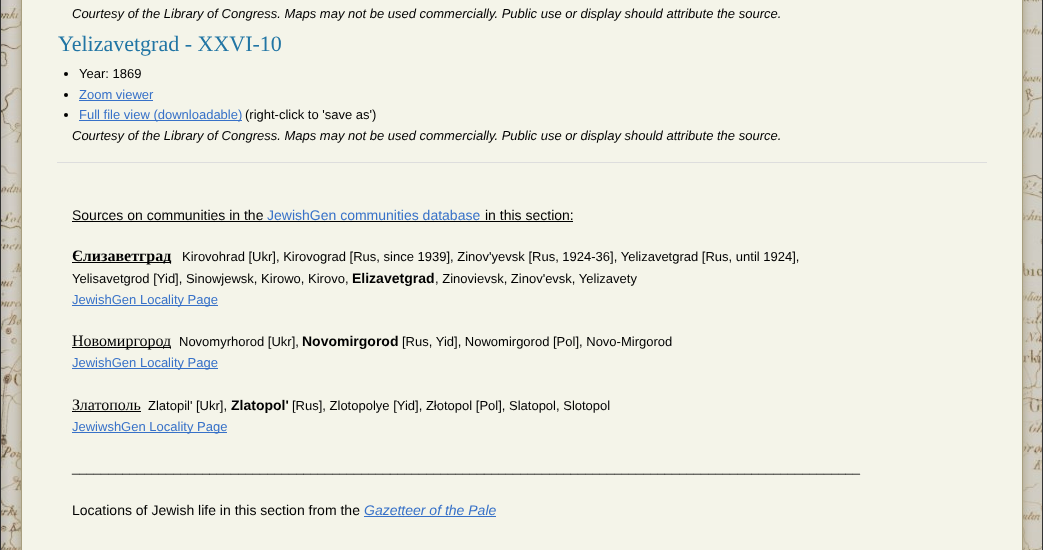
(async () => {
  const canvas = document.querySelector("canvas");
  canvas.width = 1043;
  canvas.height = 550;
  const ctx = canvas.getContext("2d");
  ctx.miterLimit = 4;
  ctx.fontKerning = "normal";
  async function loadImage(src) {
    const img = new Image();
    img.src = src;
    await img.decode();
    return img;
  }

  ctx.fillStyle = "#ffffff";
  ctx.fillRect(0, 0, 1043, 550);
  ctx.drawImage(await loadImage("img/1.png"), 1, 0, 1041, 550);
  ctx.strokeStyle = "#333333";
  ctx.strokeRect(0.5, -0.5, 1042, 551);
  ctx.fillStyle = "#a79e7f";
  ctx.filter = "blur(5px)";
  ctx.beginPath();
  ctx.rect(21, -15, 1002, 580);
  ctx.fill();
  ctx.filter = "none";
  ctx.strokeStyle = "#a79e7f";
  ctx.strokeRect(21.5, -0.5, 1001, 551);
  ctx.fillStyle = "#f4f4e9";
  ctx.fillRect(22, 0, 1000, 550);
  ctx.fillStyle = "#000000";
  ctx.beginPath();
  ctx.arc(66, 74, 2, 0, Math.PI * 2);
  ctx.fill();
  ctx.beginPath();
  ctx.arc(66, 95, 2, 0, Math.PI * 2);
  ctx.fill();
  ctx.fillStyle = "#3771c8";
  ctx.fillRect(79, 100, 74, 1);
  ctx.fillStyle = "#000000";
  ctx.beginPath();
  ctx.arc(66, 115, 2, 0, Math.PI * 2);
  ctx.fill();
  for (const [x, y, w, h, color] of [
    [79, 120, 163, 1, "#3771c8"],
    [57, 162, 930, 1, "#dddddd"],
    [72, 221, 501, 1, "#000000"],
    [72, 262, 99, 1, "#000000"],
    [72, 305, 146, 1, "#3771c8"],
    [72, 347, 99, 1, "#000000"],
    [72, 368, 146, 1, "#3771c8"],
    [72, 411, 69, 1, "#000000"],
    [72, 432, 155, 1, "#3771c8"],
    [364, 516, 132, 1, "#3771c8"],
  ]) {
    ctx.fillStyle = color;
    ctx.fillRect(x, y, w, h);
  }
  ctx.font = "italic 13px Liberation Sans";
  ctx.fillStyle = "#000000";
  ctx.fillText("Courtesy of the Library of Congress. Maps may not be used commercially. Public use or display should attribute the source.", 72, 18);
  ctx.font = "22px Liberation Serif";
  ctx.fillStyle = "#2175a4";
  ctx.fillText("Yelizavetgrad - XXVI-10", 58, 51);
  ctx.font = "13px Liberation Sans";
  ctx.fillStyle = "#000000";
  ctx.fillText("Year: 1869", 79, 78);
  ctx.fillStyle = "#3771c8";
  ctx.fillText("Zoom viewer", 79, 99);
  ctx.fillText("Full file view (downloadable)", 79, 119);
  ctx.fillStyle = "#000000";
  ctx.fillText("(right-click to 'save as')", 245, 119);
  ctx.font = "italic 13px Liberation Sans";
  ctx.fillText("Courtesy of the Library of Congress. Maps may not be used commercially. Public use or display should attribute the source.", 72, 140);
  ctx.font = "14px Liberation Sans";
  ctx.fillText("Sources on communities in the", 72, 220);
  ctx.fillStyle = "#3771c8";
  ctx.fillText("JewishGen communities database", 267, 220);
  ctx.fillStyle = "#000000";
  ctx.fillText("in this section:", 485, 220);
  ctx.font = "bold 16px Liberation Serif";
  ctx.fillText("Єлизаветград", 72, 261);
  ctx.font = "13px Liberation Sans";
  ctx.fillText("Kirovohrad [Ukr], Kirovograd [Rus, since 1939], Zinov'yevsk [Rus, 1924-36], Yelizavetgrad [Rus, until 1924],", 182, 261);
  ctx.fillText("Yelisavetgrod [Yid], Sinowjewsk, Kirowo, Kirovo,", 72, 283);
  ctx.font = "bold 14px Liberation Sans";
  ctx.fillText("Elizavetgrad", 352, 283);
  ctx.font = "13px Liberation Sans";
  ctx.fillText(", Zinovievsk, Zinov'evsk, Yelizavety", 435, 283);
  ctx.fillStyle = "#3771c8";
  ctx.fillText("JewishGen Locality Page", 72, 304);
  ctx.font = "16px Liberation Serif";
  ctx.fillStyle = "#000000";
  ctx.fillText("Новомиргород", 72, 346);
  ctx.font = "13px Liberation Sans";
  ctx.fillText("Novomyrhorod [Ukr],", 179, 346);
  ctx.font = "bold 14px Liberation Sans";
  ctx.fillText("Novomirgorod", 302, 346);
  ctx.font = "13px Liberation Sans";
  ctx.fillText("[Rus, Yid], Nowomirgorod [Pol], Novo-Mirgorod", 402, 346);
  ctx.fillStyle = "#3771c8";
  ctx.fillText("JewishGen Locality Page", 72, 367);
  ctx.font = "16px Liberation Serif";
  ctx.fillStyle = "#000000";
  ctx.fillText("Златополь", 72, 410);
  ctx.font = "13px Liberation Sans";
  ctx.fillText("Zlatopil' [Ukr],", 148, 410);
  ctx.font = "bold 14px Liberation Sans";
  ctx.fillText("Zlatopol'", 231, 410);
  ctx.font = "13px Liberation Sans";
  ctx.fillText("[Rus], Zlotopolye [Yid], Złotopol [Pol], Slatopol, Slotopol", 292, 410);
  ctx.fillStyle = "#3771c8";
  ctx.fillText("JewiwshGen Locality Page", 72, 431);
  ctx.fillStyle = "#000000";
  ctx.fillText("_____________________________________________________________________________________________________________", 72, 472);
  ctx.font = "14px Liberation Sans";
  ctx.fillText("Locations of Jewish life in this section from the", 72, 515);
  ctx.font = "italic 14px Liberation Sans";
  ctx.fillStyle = "#3771c8";
  ctx.fillText("Gazetteer of the Pale", 364, 515);
})();
